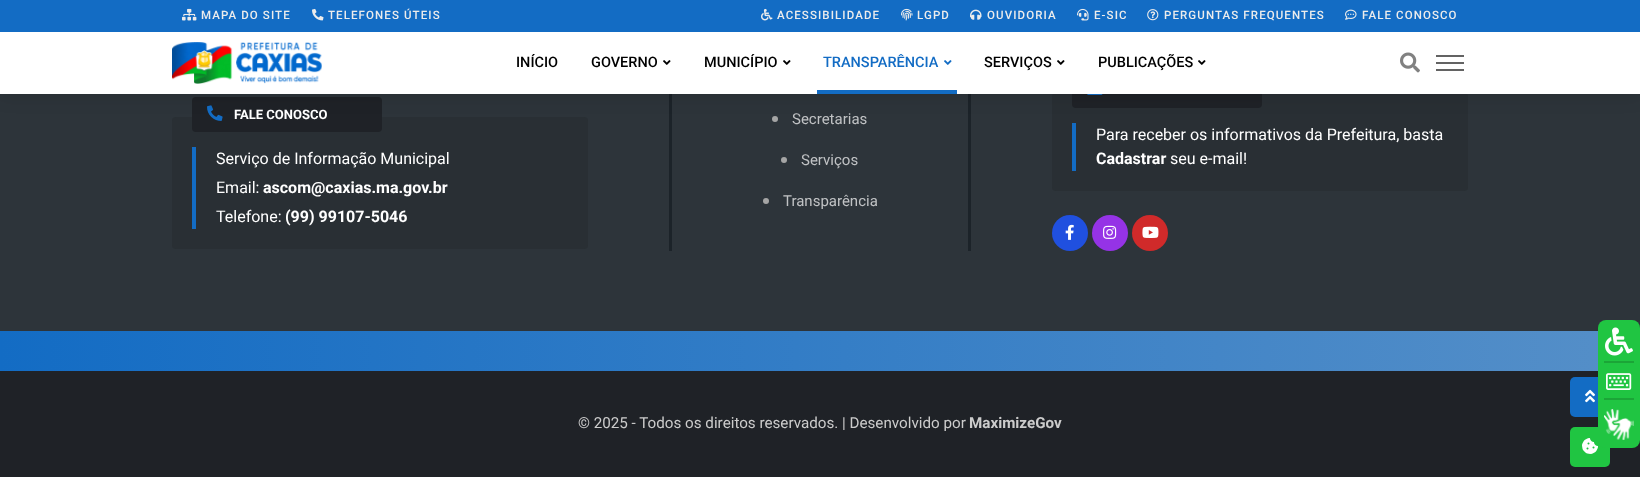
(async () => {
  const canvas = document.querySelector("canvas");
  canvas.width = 1640;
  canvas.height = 477;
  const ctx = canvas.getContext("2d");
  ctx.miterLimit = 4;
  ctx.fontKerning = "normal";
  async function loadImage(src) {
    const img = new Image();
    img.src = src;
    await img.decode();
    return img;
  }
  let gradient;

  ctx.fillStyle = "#2d343a";
  ctx.fillRect(0, 0, 1640, 477);
  ctx.fillStyle = "#292f34";
  ctx.beginPath();
  ctx.roundRect(172, 117, 416, 132, 4);
  ctx.fill();
  ctx.fillStyle = "#1f2227";
  ctx.beginPath();
  ctx.roundRect(192, 97, 190, 35, 4);
  ctx.fill();
  ctx.drawImage(await loadImage("img/13.png"), 207, 105, 16, 16);
  ctx.fillStyle = "#1c2329";
  ctx.fillRect(968, 94, 3, 157);
  ctx.fillRect(669, 94, 3, 157);
  ctx.fillStyle = "#a5a5a5";
  ctx.beginPath();
  ctx.arc(775, 119, 3, 0, Math.PI * 2);
  ctx.fill();
  ctx.fillStyle = "#292f34";
  ctx.beginPath();
  ctx.roundRect(1052, 93, 416, 98, 4);
  ctx.fill();
  ctx.fillStyle = "#1f2227";
  ctx.beginPath();
  ctx.roundRect(1072, 73, 190, 35, 4);
  ctx.fill();
  ctx.drawImage(await loadImage("img/14.png"), 1087, 94, 16, 1);
  ctx.fillStyle = "#136cc4";
  ctx.fillRect(1072, 123, 4, 48);
  ctx.fillStyle = "rgba(0, 0, 0, 0.15)";
  ctx.filter = "blur(9.5px)";
  ctx.beginPath();
  ctx.rect(0, 0, 1640, 94);
  ctx.fill();
  ctx.filter = "none";
  ctx.fillStyle = "#ffffff";
  ctx.fillRect(0, 32, 1640, 62);
  ctx.fillStyle = "#136cc4";
  ctx.fillRect(0, 0, 1640, 32);
  ctx.drawImage(await loadImage("img/1.png"), 182, 8, 15, 13);
  ctx.drawImage(await loadImage("img/2.png"), 312, 8, 12, 13);
  ctx.drawImage(await loadImage("img/3.png"), 761, 8, 12, 13);
  ctx.drawImage(await loadImage("img/4.png"), 901, 8, 12, 13);
  ctx.drawImage(await loadImage("img/5.png"), 970, 9, 12, 11);
  ctx.drawImage(await loadImage("img/6.png"), 1077, 8, 12, 13);
  ctx.drawImage(await loadImage("img/7.png"), 1147, 9, 12, 12);
  ctx.drawImage(await loadImage("img/8.png"), 1345, 9, 12, 11);
  ctx.drawImage(await loadImage("img/9.png"), 172, 42, 150, 42);
  ctx.drawImage(await loadImage("img/10.png"), 663, 60, 8, 5);
  ctx.drawImage(await loadImage("img/10.png"), 783, 60, 8, 5);
  ctx.drawImage(await loadImage("img/11.png"), 944, 60, 8, 5);
  ctx.fillRect(817, 90, 140, 4);
  ctx.drawImage(await loadImage("img/10.png"), 1057, 60, 8, 5);
  ctx.drawImage(await loadImage("img/10.png"), 1198, 60, 8, 5);
  ctx.drawImage(await loadImage("img/12.png"), 1400, 52, 20, 21);
  for (const [x, y, w, h, color] of [
    [1436, 55, 28, 2, "#636363"],
    [1436, 62, 28, 2, "#636363"],
    [1436, 69, 28, 2, "#636363"],
    [192, 147, 4, 82, "#136cc4"],
  ]) {
    ctx.fillStyle = color;
    ctx.fillRect(x, y, w, h);
  }
  ctx.fillStyle = "#a5a5a5";
  ctx.beginPath();
  ctx.arc(784, 160, 3, 0, Math.PI * 2);
  ctx.fill();
  ctx.beginPath();
  ctx.arc(766, 201, 3, 0, Math.PI * 2);
  ctx.fill();
  ctx.fillStyle = "#2050df";
  ctx.beginPath();
  ctx.arc(1070, 233, 18, 0, Math.PI * 2);
  ctx.fill();
  ctx.drawImage(await loadImage("img/15.png"), 1065, 224, 9, 16);
  ctx.fillStyle = "#9533e6";
  ctx.beginPath();
  ctx.arc(1110, 233, 18, 0, Math.PI * 2);
  ctx.fill();
  ctx.drawImage(await loadImage("img/16.png"), 1103, 225, 14, 14);
  ctx.fillStyle = "#d02a2a";
  ctx.beginPath();
  ctx.arc(1150, 233, 18, 0, Math.PI * 2);
  ctx.fill();
  ctx.drawImage(await loadImage("img/17.png"), 1142, 226, 17, 12);
  gradient = ctx.createLinearGradient(0, 351, 1640, 351);
  gradient.addColorStop(0, "#136cc4");
  gradient.addColorStop(1, "#558fc8");
  ctx.fillStyle = gradient;
  ctx.fillRect(0, 331, 1598, 40);
  ctx.fillStyle = "#1f2227";
  ctx.fillRect(0, 371, 1640, 106);
  ctx.fillStyle = "#136cc4";
  ctx.beginPath();
  ctx.roundRect(1570, 377, 40, 40, 5);
  ctx.fill();
  ctx.drawImage(await loadImage("img/18.png"), 1585, 389, 10, 14);
  ctx.fillStyle = "#20c542";
  ctx.beginPath();
  ctx.roundRect(1570, 427, 40, 40, 5);
  ctx.fill();
  ctx.beginPath();
  ctx.roundRect(1598, 320, 42, 128, 8);
  ctx.fill();
  ctx.fillStyle = "#1ba537";
  ctx.fillRect(1604, 361, 30, 2);
  ctx.drawImage(await loadImage("img/19.png"), 1605, 327, 28, 29);
  ctx.fillRect(1604, 398, 30, 2);
  ctx.drawImage(await loadImage("img/20.png"), 1606, 373, 26, 17);
  ctx.drawImage(await loadImage("img/21.png"), 1604, 409, 30, 31);
  ctx.drawImage(await loadImage("img/22.png"), 1582, 438, 16, 16);
  ctx.letterSpacing = "1.1px";
  ctx.font = "500 11.5px Roboto";
  ctx.fillStyle = "#ececec";
  for (const [text, x, y] of [
    ["MAPA DO SITE", 201, 19],
    ["TELEFONES ÚTEIS", 328, 19],
    ["ACESSIBILIDADE", 777, 19],
    ["LGPD", 917, 19],
    ["OUVIDORIA", 987, 19],
    ["E-SIC", 1094, 19],
    ["PERGUNTAS FREQUENTES", 1164, 19],
    ["FALE CONOSCO", 1362, 19],
  ]) {
    ctx.fillText(text, x, y);
  }
  ctx.letterSpacing = "0px";
  ctx.font = "500 14.5px Roboto";
  ctx.fillStyle = "#000000";
  for (const [text, x, y] of [
    ["INÍCIO", 516, 67],
    ["GOVERNO", 591, 67],
    ["MUNICÍPIO", 704, 67],
  ]) {
    ctx.fillText(text, x, y);
  }
  ctx.fillStyle = "#136cc4";
  ctx.fillText("TRANSPARÊNCIA", 823, 67);
  ctx.fillStyle = "#000000";
  ctx.fillText("SERVIÇOS", 984, 67);
  ctx.fillText("PUBLICAÇÕES", 1098, 67);
  ctx.font = "bold 13px Roboto";
  ctx.fillStyle = "#ffffff";
  ctx.fillText("FALE CONOSCO", 234, 119);
  ctx.font = "16px Roboto";
  ctx.fillText("Serviço de Informação Municipal", 216, 164);
  ctx.fillText("Email:", 216, 193);
  ctx.font = "bold 16px Roboto";
  ctx.fillText("ascom@caxias.ma.gov.br", 263, 193);
  ctx.font = "16px Roboto";
  ctx.fillText("Telefone:", 216, 222);
  ctx.font = "bold 16px Roboto";
  ctx.fillText("(99) 99107-5046", 285, 222);
  ctx.font = "15px Roboto";
  ctx.fillStyle = "#c0c2c4";
  for (const [text, x, y] of [
    ["Secretarias", 792, 124],
    ["Serviços", 801, 165],
    ["Transparência", 783, 206],
  ]) {
    ctx.fillText(text, x, y);
  }
  ctx.font = "16px Roboto";
  ctx.fillStyle = "#ffffff";
  ctx.fillText("Para receber os informativos da Prefeitura, basta", 1096, 140);
  ctx.font = "bold 16px Roboto";
  ctx.fillText("Cadastrar", 1096, 164);
  ctx.font = "16px Roboto";
  ctx.fillText("seu e-mail!", 1170, 164);
  ctx.font = "15.2px Roboto";
  ctx.fillStyle = "#cccccc";
  ctx.fillText("© 2025 - Todos os direitos reservados. | Desenvolvido por", 578, 428);
  ctx.font = "bold 15.2px Roboto";
  ctx.fillText("MaximizeGov", 969, 428);
})();
